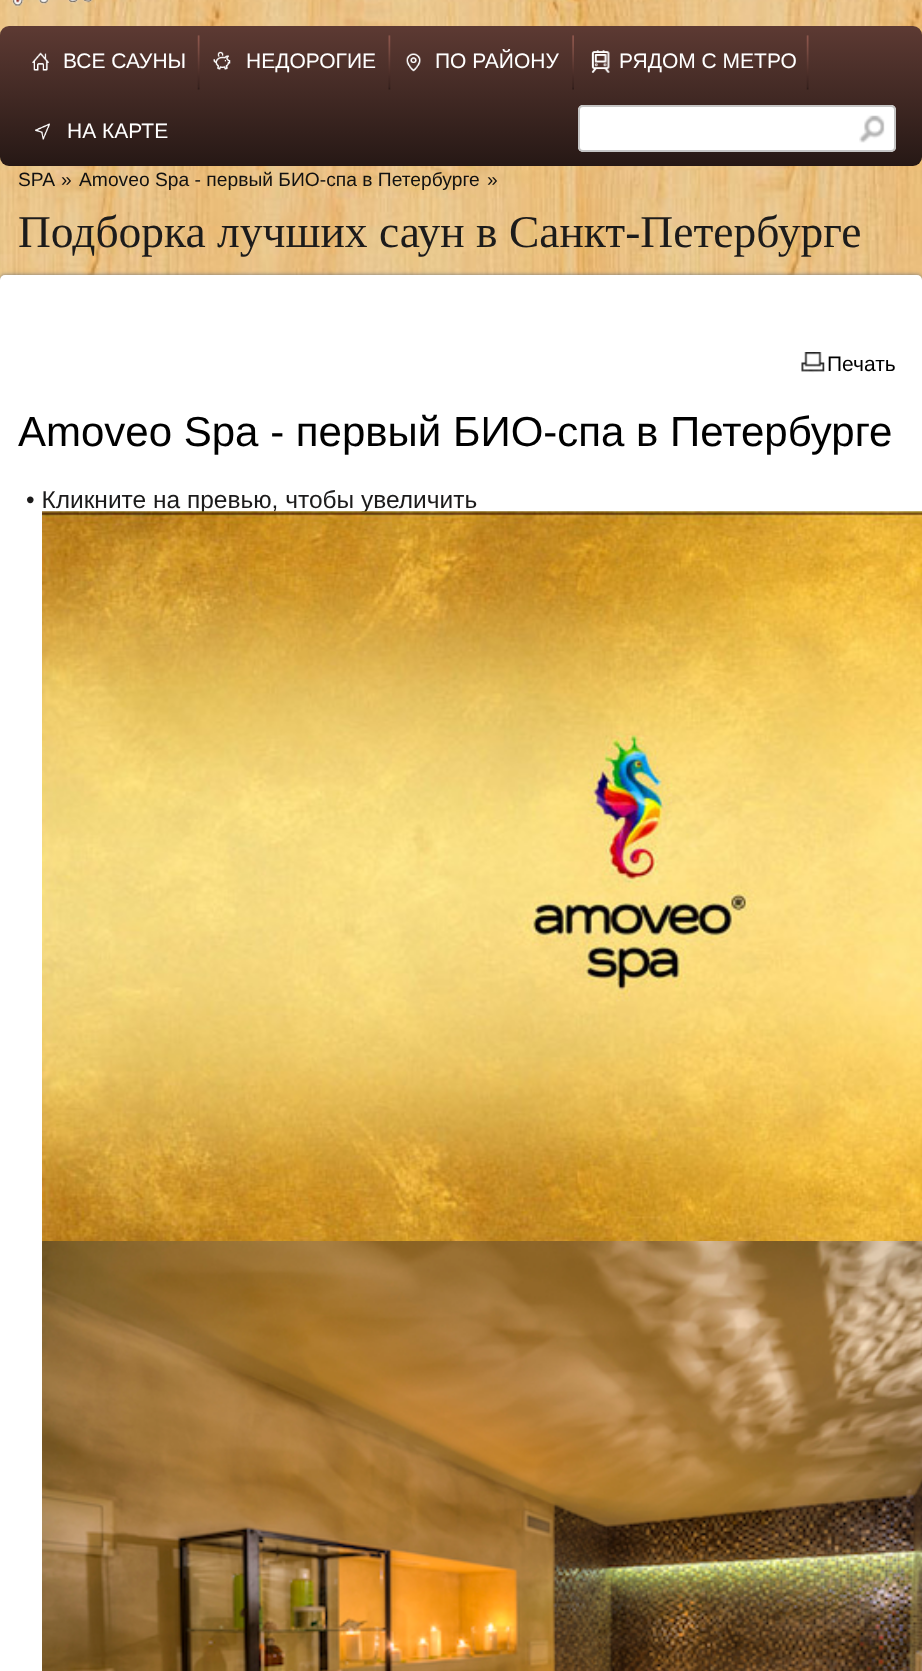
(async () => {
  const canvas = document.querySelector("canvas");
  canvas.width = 922;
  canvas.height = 1671;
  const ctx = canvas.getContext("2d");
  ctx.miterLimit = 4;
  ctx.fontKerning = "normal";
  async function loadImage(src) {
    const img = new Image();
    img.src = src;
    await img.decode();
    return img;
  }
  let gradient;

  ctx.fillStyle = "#ffffff";
  ctx.fillRect(0, 0, 922, 1671);
  ctx.drawImage(await loadImage("img/1.png"), 0, 0, 922, 280);
  ctx.drawImage(await loadImage("img/2.png"), 11, 0, 85, 8);
  gradient = ctx.createLinearGradient(461, 26, 461, 166);
  gradient.addColorStop(0, "#5d3a33");
  gradient.addColorStop(1, "#261815");
  ctx.fillStyle = gradient;
  ctx.beginPath();
  ctx.roundRect(0, 26, 922, 140, 9);
  ctx.fill();
  ctx.drawImage(await loadImage("img/3.png"), 197, 35, 3, 55);
  ctx.drawImage(await loadImage("img/4.png"), 32, 52, 17, 19);
  ctx.drawImage(await loadImage("img/5.png"), 388, 35, 3, 55);
  ctx.drawImage(await loadImage("img/6.png"), 213, 51, 18, 19);
  ctx.drawImage(await loadImage("img/7.png"), 572, 35, 2, 55);
  ctx.drawImage(await loadImage("img/8.png"), 406, 53, 15, 19);
  ctx.drawImage(await loadImage("img/3.png"), 806, 35, 3, 55);
  ctx.drawImage(await loadImage("img/9.png"), 591, 50, 19, 23);
  ctx.drawImage(await loadImage("img/10.png"), 35, 123, 15, 17);
  ctx.fillStyle = "#ffffff";
  ctx.beginPath();
  ctx.roundRect(578, 105, 318, 47, 5);
  ctx.fill();
  ctx.drawImage(await loadImage("img/11.png"), 859, 115, 26, 28);
  ctx.beginPath();
  ctx.roundRect(579, 106, 316, 45, 4);
  ctx.strokeStyle = "#c5c5c5";
  ctx.lineWidth = 2;
  ctx.stroke();
  ctx.fillStyle = "#777777";
  ctx.filter = "blur(2px)";
  ctx.beginPath();
  ctx.roundRect(0, 275, 922, 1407, 5);
  ctx.fill();
  ctx.filter = "none";
  ctx.fillStyle = "#ffffff";
  ctx.beginPath();
  ctx.roundRect(0, 275, 922, 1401, 5);
  ctx.fill();
  ctx.drawImage(await loadImage("img/12.png"), 801, 352, 24, 21);
  ctx.drawImage(await loadImage("img/14.png"), 42, 1241, 880, 430);
  ctx.font = "21px Liberation Sans";
  for (const [text, x, y] of [
    ["ВСЕ САУНЫ", 63, 68],
    ["НЕДОРОГИЕ", 246, 68],
    ["ПО РАЙОНУ", 435, 68],
    ["РЯДОМ С МЕТРО", 619, 68],
    ["НА КАРТЕ", 67, 138],
  ]) {
    ctx.fillText(text, x, y);
  }
  ctx.font = "19.25px Liberation Sans";
  ctx.fillStyle = "#111111";
  for (const [text, x, y] of [
    ["SPA", 18, 186],
    ["»", 61, 186],
    ["Amoveo Spa - первый БИО-спа в Петербурге", 79, 186],
    ["»", 487, 186],
  ]) {
    ctx.fillText(text, x, y);
  }
  ctx.font = "45.5px Liberation Serif";
  ctx.fillStyle = "#1c1b1b";
  ctx.fillText("Подборка лучших саун в Санкт-Петербурге", 18, 247);
  ctx.font = "21px Liberation Sans";
  ctx.fillStyle = "#000000";
  ctx.fillText("Печать", 827, 371);
  ctx.font = "42px Liberation Sans";
  ctx.fillText("Amoveo Spa - первый БИО-спа в Петербурге", 18, 446);
  ctx.font = "24.5px Liberation Sans";
  ctx.fillStyle = "#1c1b1b";
  ctx.fillText("• Кликните на превью, чтобы увеличить", 26, 508);
  ctx.drawImage(await loadImage("img/13.png"), 42, 511, 880, 730);
})();
